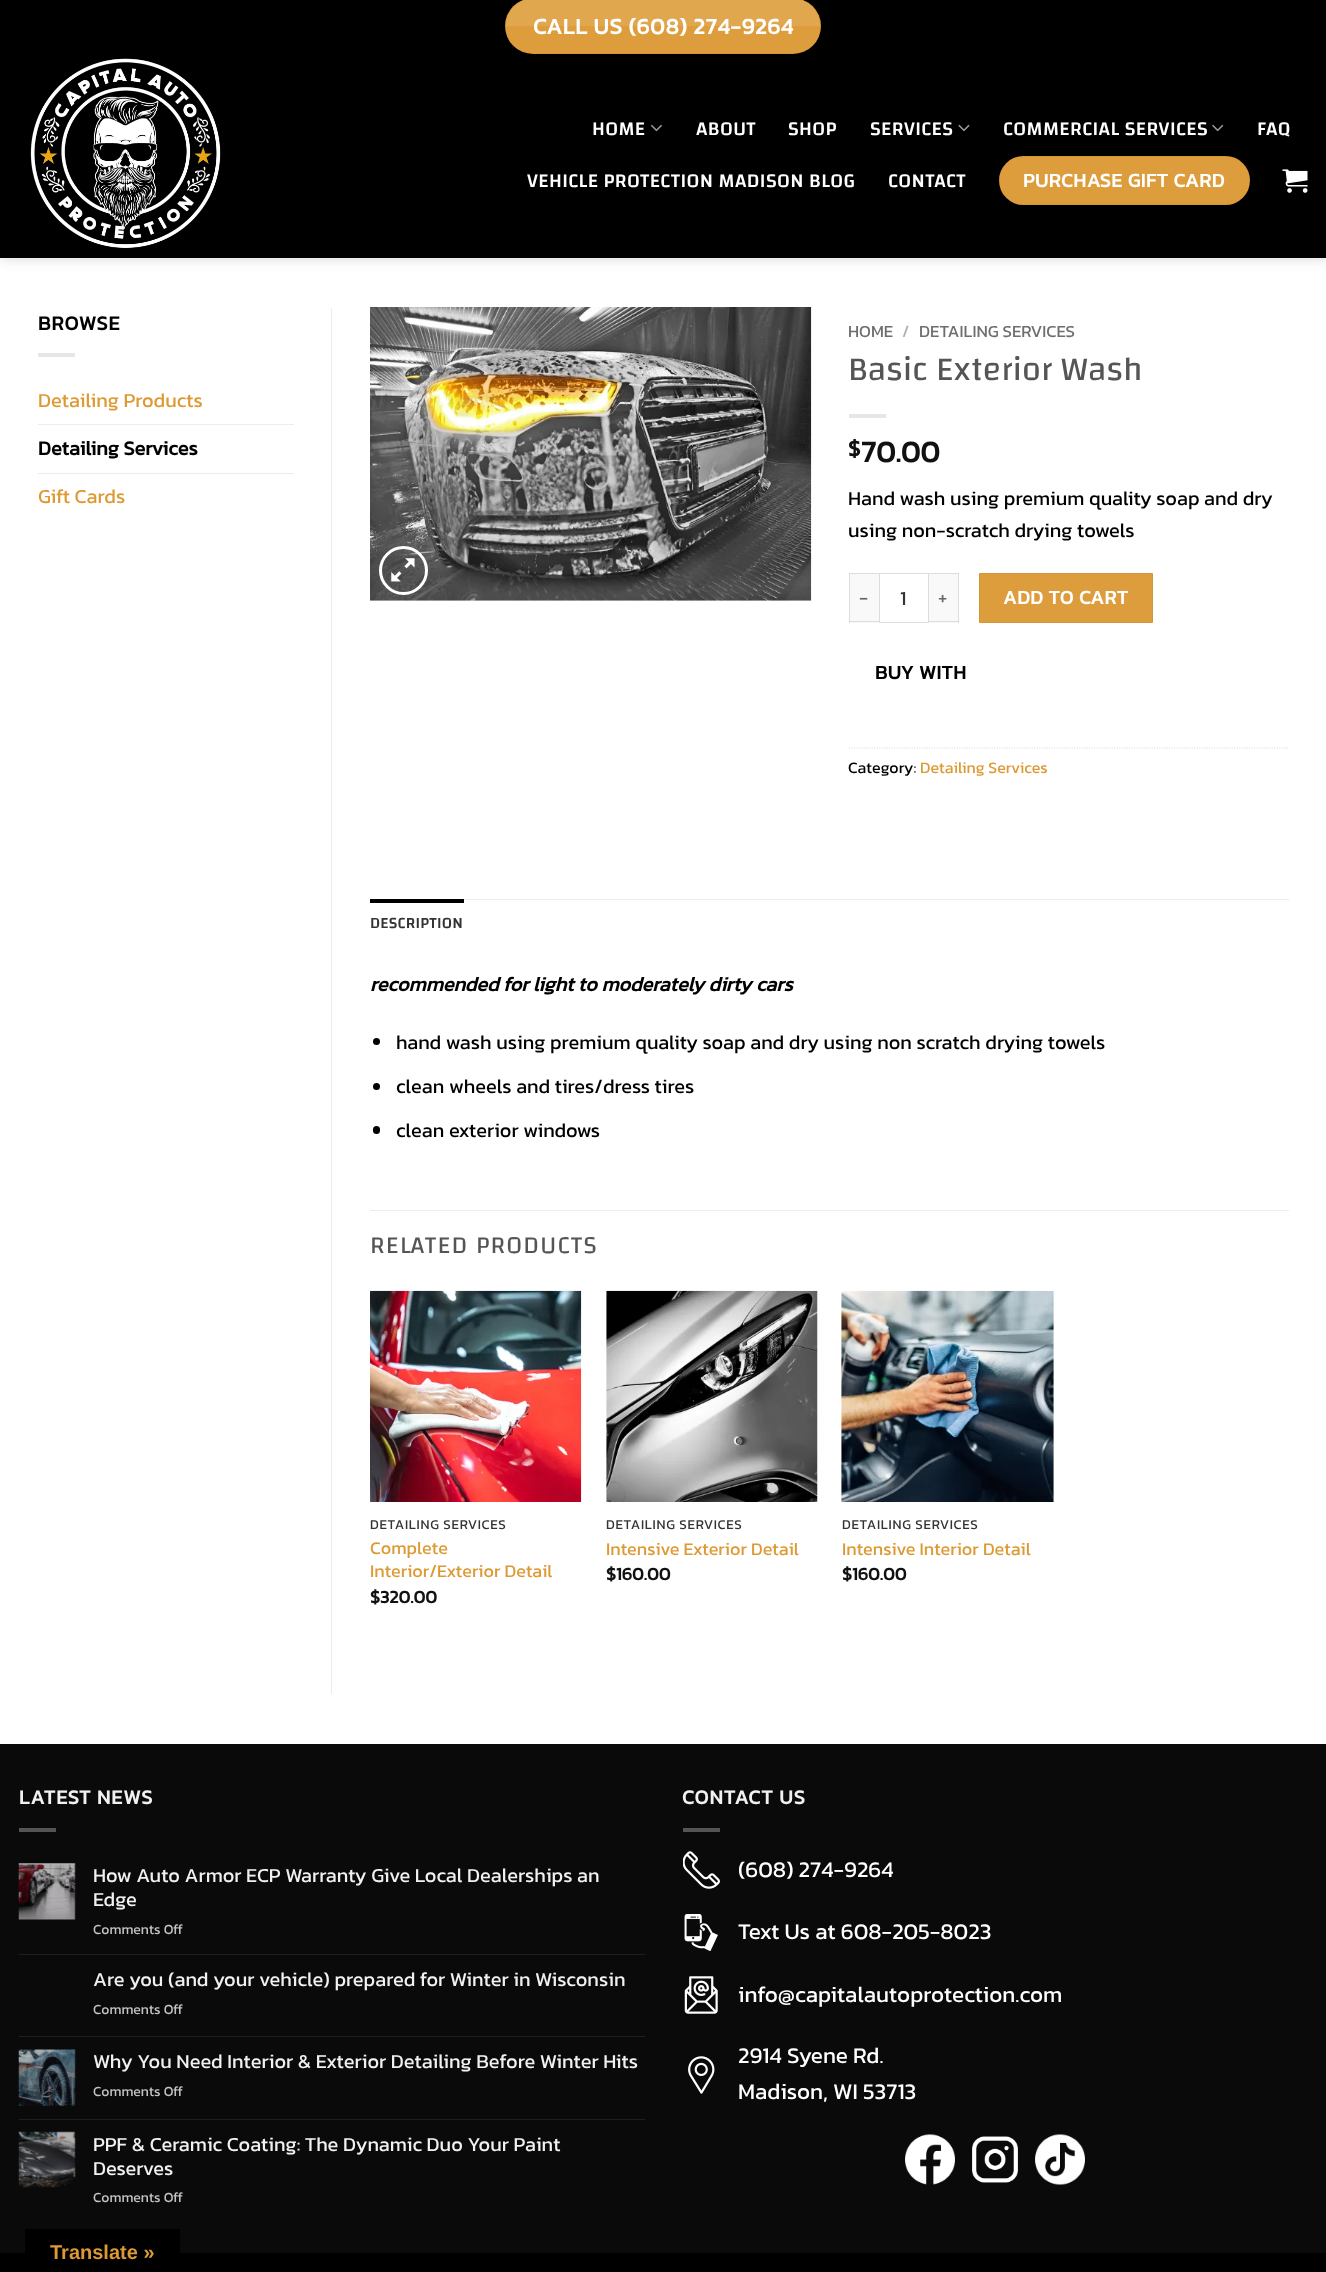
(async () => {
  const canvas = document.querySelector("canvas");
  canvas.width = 1326;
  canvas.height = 2272;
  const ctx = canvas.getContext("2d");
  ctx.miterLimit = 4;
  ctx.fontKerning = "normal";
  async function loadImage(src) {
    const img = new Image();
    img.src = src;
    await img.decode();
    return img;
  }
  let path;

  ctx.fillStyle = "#ffffff";
  ctx.fillRect(0, 0, 1326, 2272);
  ctx.fillStyle = "rgba(0, 0, 0, 0.15)";
  ctx.filter = "blur(6px)";
  ctx.beginPath();
  ctx.rect(1, -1, 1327, 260);
  ctx.fill();
  ctx.filter = "none";
  ctx.fillStyle = "#000000";
  ctx.fillRect(0, 0, 1326, 258);
  ctx.fillStyle = "#de9d3c";
  ctx.beginPath();
  ctx.roundRect(505, -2, 316, 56, 28);
  ctx.fill();
  ctx.strokeStyle = "rgba(0, 0, 0, 0.05)";
  ctx.strokeRect(505.5, -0.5, 315, 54);
  ctx.fillStyle = "rgba(255, 255, 255, 0.1)";
  path = new Path2D("M533-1H793C808-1 820 11 820 26H506C506 11 518-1 533-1Z");
  ctx.fill(path);
  ctx.drawImage(await loadImage("img/1.png"), 30, 58, 191, 190);
  ctx.drawImage(await loadImage("img/2.png"), 650, 124, 12, 8);
  ctx.drawImage(await loadImage("img/3.png"), 958, 124, 12, 8);
  ctx.drawImage(await loadImage("img/4.png"), 1212, 124, 12, 8);
  ctx.fillStyle = "#de9d3c";
  ctx.beginPath();
  ctx.roundRect(999, 156, 251, 49, 24.5);
  ctx.fill();
  ctx.strokeRect(999.5, 156.5, 250, 48);
  ctx.drawImage(await loadImage("img/5.png"), 1282, 169, 26, 24);
  for (const [x, y, w, h, color] of [
    [38, 353, 37, 4, "#e6e6e6"],
    [38, 424, 256, 1, "#ececec"],
    [38, 473, 256, 1, "#ececec"],
    [331, 308, 1, 1386, "#ececec"],
  ]) {
    ctx.fillStyle = color;
    ctx.fillRect(x, y, w, h);
  }
  ctx.drawImage(await loadImage("img/6.png"), 370, 307, 442, 294);
  ctx.beginPath();
  ctx.arc(403.5, 570.5, 23, 0, Math.PI * 2);
  ctx.strokeStyle = "#ffffff";
  ctx.lineWidth = 3;
  ctx.stroke();
  ctx.drawImage(await loadImage("img/7.png"), 391, 558, 24, 24);
  for (const [x, y, w, h, color] of [
    [849, 414, 37, 4, "#e6e6e6"],
    [850, 574, 29, 49, "#f9f9f9"],
    [849, 573, 30, 1, "#dddddd"],
    [849, 621, 30, 1, "#dddddd"],
    [849, 573, 1, 50, "#dddddd"],
  ]) {
    ctx.fillStyle = color;
    ctx.fillRect(x, y, w, h);
  }
  ctx.strokeStyle = "#dddddd";
  ctx.lineWidth = 1;
  ctx.strokeRect(879.5, 573.5, 49, 49);
  for (const [x, y, w, h, color] of [
    [929, 574, 29, 49, "#f9f9f9"],
    [929, 573, 30, 1, "#dddddd"],
    [958, 573, 1, 50, "#dddddd"],
    [929, 621, 30, 1, "#dddddd"],
  ]) {
    ctx.fillStyle = color;
    ctx.fillRect(x, y, w, h);
  }
  ctx.fillStyle = "#de9d3c";
  ctx.beginPath();
  ctx.rect(979.5, 573.5, 173, 49);
  ctx.fill();
  ctx.strokeStyle = "#d39539";
  ctx.stroke();
  path = new Path2D("M849 748H1289");
  ctx.strokeStyle = "#dddddd";
  ctx.lineWidth = 1.2;
  ctx.setLineDash([1.25, 1.25]);
  ctx.stroke(path);
  ctx.fillStyle = "#ececec";
  ctx.fillRect(464, 899, 825, 1);
  ctx.fillStyle = "#000000";
  ctx.fillRect(370, 899, 94, 4);
  ctx.beginPath();
  ctx.arc(376.5, 1041.5, 3.5, 0, Math.PI * 2);
  ctx.fill();
  ctx.beginPath();
  ctx.arc(376.5, 1086.5, 3.5, 0, Math.PI * 2);
  ctx.fill();
  ctx.beginPath();
  ctx.roundRect(373, 1126, 7, 8, 3.5);
  ctx.fill();
  ctx.fillStyle = "#ececec";
  ctx.fillRect(370, 1210, 919, 1);
  ctx.drawImage(await loadImage("img/8.png"), 370, 1290, 212, 212);
  ctx.drawImage(await loadImage("img/9.png"), 606, 1290, 212, 212);
  ctx.drawImage(await loadImage("img/10.png"), 841, 1290, 213, 212);
  ctx.fillStyle = "#0a0a0a";
  ctx.fillRect(0, 1744, 1326, 509);
  ctx.fillStyle = "#545454";
  ctx.fillRect(19, 1828, 37, 4);
  ctx.drawImage(await loadImage("img/11.png"), 18, 1863, 58, 57);
  ctx.fillStyle = "#1e1e1e";
  ctx.fillRect(19, 1954, 626, 1);
  ctx.fillRect(19, 2036, 626, 1);
  ctx.drawImage(await loadImage("img/12.png"), 18, 2049, 58, 57);
  ctx.fillRect(19, 2119, 626, 1);
  ctx.drawImage(await loadImage("img/13.png"), 18, 2131, 58, 57);
  ctx.fillStyle = "#545454";
  ctx.fillRect(683, 1828, 37, 4);
  ctx.drawImage(await loadImage("img/14.png"), 683, 1851, 37, 38);
  ctx.drawImage(await loadImage("img/15.png"), 684, 1914, 34, 37);
  ctx.drawImage(await loadImage("img/16.png"), 684, 1976, 34, 38);
  ctx.drawImage(await loadImage("img/17.png"), 688, 2056, 27, 38);
  ctx.drawImage(await loadImage("img/18.png"), 905, 2134, 50, 51);
  ctx.drawImage(await loadImage("img/19.png"), 972, 2136, 46, 47);
  ctx.drawImage(await loadImage("img/20.png"), 1035, 2134, 50, 51);
  ctx.fillStyle = "#000000";
  ctx.fillRect(0, 2253, 1326, 19);
  ctx.fillRect(25, 2229, 155, 24);
  ctx.letterSpacing = "0.7px";
  ctx.font = "bold 22.5px Kanit";
  ctx.fillStyle = "#ffffff";
  ctx.fillText("CALL US (608) 274-9264", 533, 34);
  ctx.letterSpacing = "0.4px";
  ctx.font = "500 20px Changa";
  for (const [text, x, y] of [
    ["HOME", 592, 135],
    ["ABOUT", 696, 135],
    ["SHOP", 788, 135],
    ["SERVICES", 870, 135],
    ["COMMERCIAL SERVICES", 1003, 135],
    ["FAQ", 1257, 135],
    ["VEHICLE PROTECTION MADISON BLOG", 527, 187],
    ["CONTACT", 888, 187],
  ]) {
    ctx.fillText(text, x, y);
  }
  ctx.letterSpacing = "0.6px";
  ctx.font = "bold 19.5px Kanit";
  ctx.fillText("PURCHASE GIFT CARD", 1023, 187);
  ctx.letterSpacing = "1px";
  ctx.font = "bold 20px Kanit";
  ctx.fillStyle = "#000000";
  ctx.fillText("BROWSE", 38, 330);
  ctx.letterSpacing = "0px";
  ctx.font = "20px Kanit";
  ctx.fillStyle = "#dd9933";
  ctx.fillText("Detailing Products", 38, 407);
  ctx.font = "bold 20px Kanit";
  ctx.fillStyle = "#000000";
  ctx.fillText("Detailing Services", 38, 455);
  ctx.font = "20px Kanit";
  ctx.fillStyle = "#dd9933";
  ctx.fillText("Gift Cards", 38, 503);
  ctx.font = "17px Kanit";
  ctx.fillStyle = "#6e6e6e";
  ctx.fillText("HOME", 848, 337);
  ctx.fillStyle = "#b2b2b2";
  ctx.fillText("/", 902, 337);
  ctx.fillStyle = "#6e6e6e";
  ctx.fillText("DETAILING SERVICES", 919, 337);
  ctx.font = "34px Changa";
  ctx.fillStyle = "#555555";
  ctx.fillText("Basic Exterior Wash", 848, 380);
  ctx.font = "bold 22.5px Kanit";
  ctx.fillStyle = "#111111";
  ctx.fillText("$", 848, 456);
  ctx.font = "bold 30px Kanit";
  ctx.fillText("70.00", 861, 462);
  ctx.font = "20px Kanit";
  ctx.fillStyle = "#000000";
  ctx.fillText("Hand wash using premium quality soap and dry", 848, 505);
  ctx.fillText("using non-scratch drying towels", 848, 537);
  ctx.letterSpacing = "0.5px";
  ctx.font = "19.5px Kanit";
  ctx.fillStyle = "#666666";
  ctx.fillText("-", 859, 604);
  ctx.letterSpacing = "0px";
  ctx.font = "20px Kanit";
  ctx.fillStyle = "#333333";
  ctx.fillText("1", 900, 605);
  ctx.letterSpacing = "0.5px";
  ctx.font = "19.5px Kanit";
  ctx.fillStyle = "#666666";
  ctx.fillText("+", 938, 604);
  ctx.font = "bold 19.5px Kanit";
  ctx.fillStyle = "#ffffff";
  ctx.fillText("ADD TO CART", 1003, 604);
  ctx.fillStyle = "#000000";
  ctx.fillText("BUY WITH", 875, 679);
  ctx.letterSpacing = "0px";
  ctx.font = "16px Kanit";
  ctx.fillText("Category:", 848, 773);
  ctx.fillStyle = "#dd9933";
  ctx.fillText("Detailing Services", 920, 773);
  ctx.letterSpacing = "0.25px";
  ctx.font = "500 16px Changa";
  ctx.fillStyle = "#333333";
  ctx.fillText("DESCRIPTION", 370, 928);
  ctx.letterSpacing = "0px";
  ctx.font = "italic bold 20px Kanit";
  ctx.fillStyle = "#000000";
  ctx.fillText("recommended for light to moderately dirty cars", 370, 991);
  ctx.font = "20px Kanit";
  for (const [text, x, y] of [
    ["hand wash using premium quality soap and dry using non scratch drying towels", 396, 1049],
    ["clean wheels and tires/dress tires", 396, 1093],
    ["clean exterior windows", 396, 1137],
  ]) {
    ctx.fillText(text, x, y);
  }
  ctx.letterSpacing = "1.25px";
  ctx.font = "25px Changa";
  ctx.fillStyle = "#555555";
  ctx.fillText("RELATED PRODUCTS", 370, 1253);
  ctx.letterSpacing = "0.7px";
  ctx.font = "13.5px Kanit";
  ctx.fillStyle = "#333333";
  ctx.fillText("DETAILING SERVICES", 370, 1529);
  ctx.letterSpacing = "0px";
  ctx.font = "18px Kanit";
  ctx.fillStyle = "#dd9933";
  ctx.fillText("Complete", 370, 1554);
  ctx.fillText("Interior/Exterior Detail", 370, 1577);
  ctx.font = "bold 18px Kanit";
  ctx.fillStyle = "#111111";
  ctx.fillText("$320.00", 370, 1603);
  ctx.letterSpacing = "0.7px";
  ctx.font = "13.5px Kanit";
  ctx.fillStyle = "#333333";
  ctx.fillText("DETAILING SERVICES", 606, 1529);
  ctx.letterSpacing = "0px";
  ctx.font = "18px Kanit";
  ctx.fillStyle = "#dd9933";
  ctx.fillText("Intensive Exterior Detail", 606, 1555);
  ctx.font = "bold 18px Kanit";
  ctx.fillStyle = "#111111";
  ctx.fillText("$160.00", 606, 1580);
  ctx.letterSpacing = "0.7px";
  ctx.font = "13.5px Kanit";
  ctx.fillStyle = "#333333";
  ctx.fillText("DETAILING SERVICES", 842, 1529);
  ctx.letterSpacing = "0px";
  ctx.font = "18px Kanit";
  ctx.fillStyle = "#dd9933";
  ctx.fillText("Intensive Interior Detail", 842, 1555);
  ctx.font = "bold 18px Kanit";
  ctx.fillStyle = "#111111";
  ctx.fillText("$160.00", 842, 1580);
  ctx.letterSpacing = "1px";
  ctx.font = "bold 20px Kanit";
  ctx.fillStyle = "#f1f1f1";
  ctx.fillText("LATEST NEWS", 19, 1804);
  ctx.letterSpacing = "0px";
  ctx.font = "20px Kanit";
  ctx.fillText("How Auto Armor ECP Warranty Give Local Dealerships an", 93, 1882);
  ctx.fillText("Edge", 93, 1906);
  ctx.font = "14px Kanit";
  ctx.fillStyle = "#c3c3c3";
  ctx.fillText("Comments Off", 93, 1934);
  ctx.font = "20px Kanit";
  ctx.fillStyle = "#f1f1f1";
  ctx.fillText("Are you (and your vehicle) prepared for Winter in Wisconsin", 93, 1986);
  ctx.font = "14px Kanit";
  ctx.fillStyle = "#c3c3c3";
  ctx.fillText("Comments Off", 93, 2014);
  ctx.font = "20px Kanit";
  ctx.fillStyle = "#f1f1f1";
  ctx.fillText("Why You Need Interior & Exterior Detailing Before Winter Hits", 93, 2068);
  ctx.font = "14px Kanit";
  ctx.fillStyle = "#c3c3c3";
  ctx.fillText("Comments Off", 93, 2096);
  ctx.font = "20px Kanit";
  ctx.fillStyle = "#f1f1f1";
  ctx.fillText("PPF & Ceramic Coating: The Dynamic Duo Your Paint", 93, 2151);
  ctx.fillText("Deserves", 93, 2175);
  ctx.font = "14px Kanit";
  ctx.fillStyle = "#c3c3c3";
  ctx.fillText("Comments Off", 93, 2202);
  ctx.letterSpacing = "1px";
  ctx.font = "bold 20px Kanit";
  ctx.fillStyle = "#f1f1f1";
  ctx.fillText("CONTACT US", 682, 1804);
  ctx.letterSpacing = "0px";
  ctx.font = "22.5px Kanit";
  ctx.fillStyle = "#ffffff";
  for (const [text, x, y] of [
    ["(608) 274-9264", 738, 1877],
    ["Text Us at 608-205-8023", 738, 1939],
    ["info@capitalautoprotection.com", 738, 2002],
    ["2914 Syene Rd.", 738, 2063],
    ["Madison, WI 53713", 738, 2099],
  ]) {
    ctx.fillText(text, x, y);
  }
  ctx.font = "bold 20px Liberation Sans";
  ctx.fillStyle = "#dd9933";
  ctx.fillText("Translate »", 50, 2259);
})();
